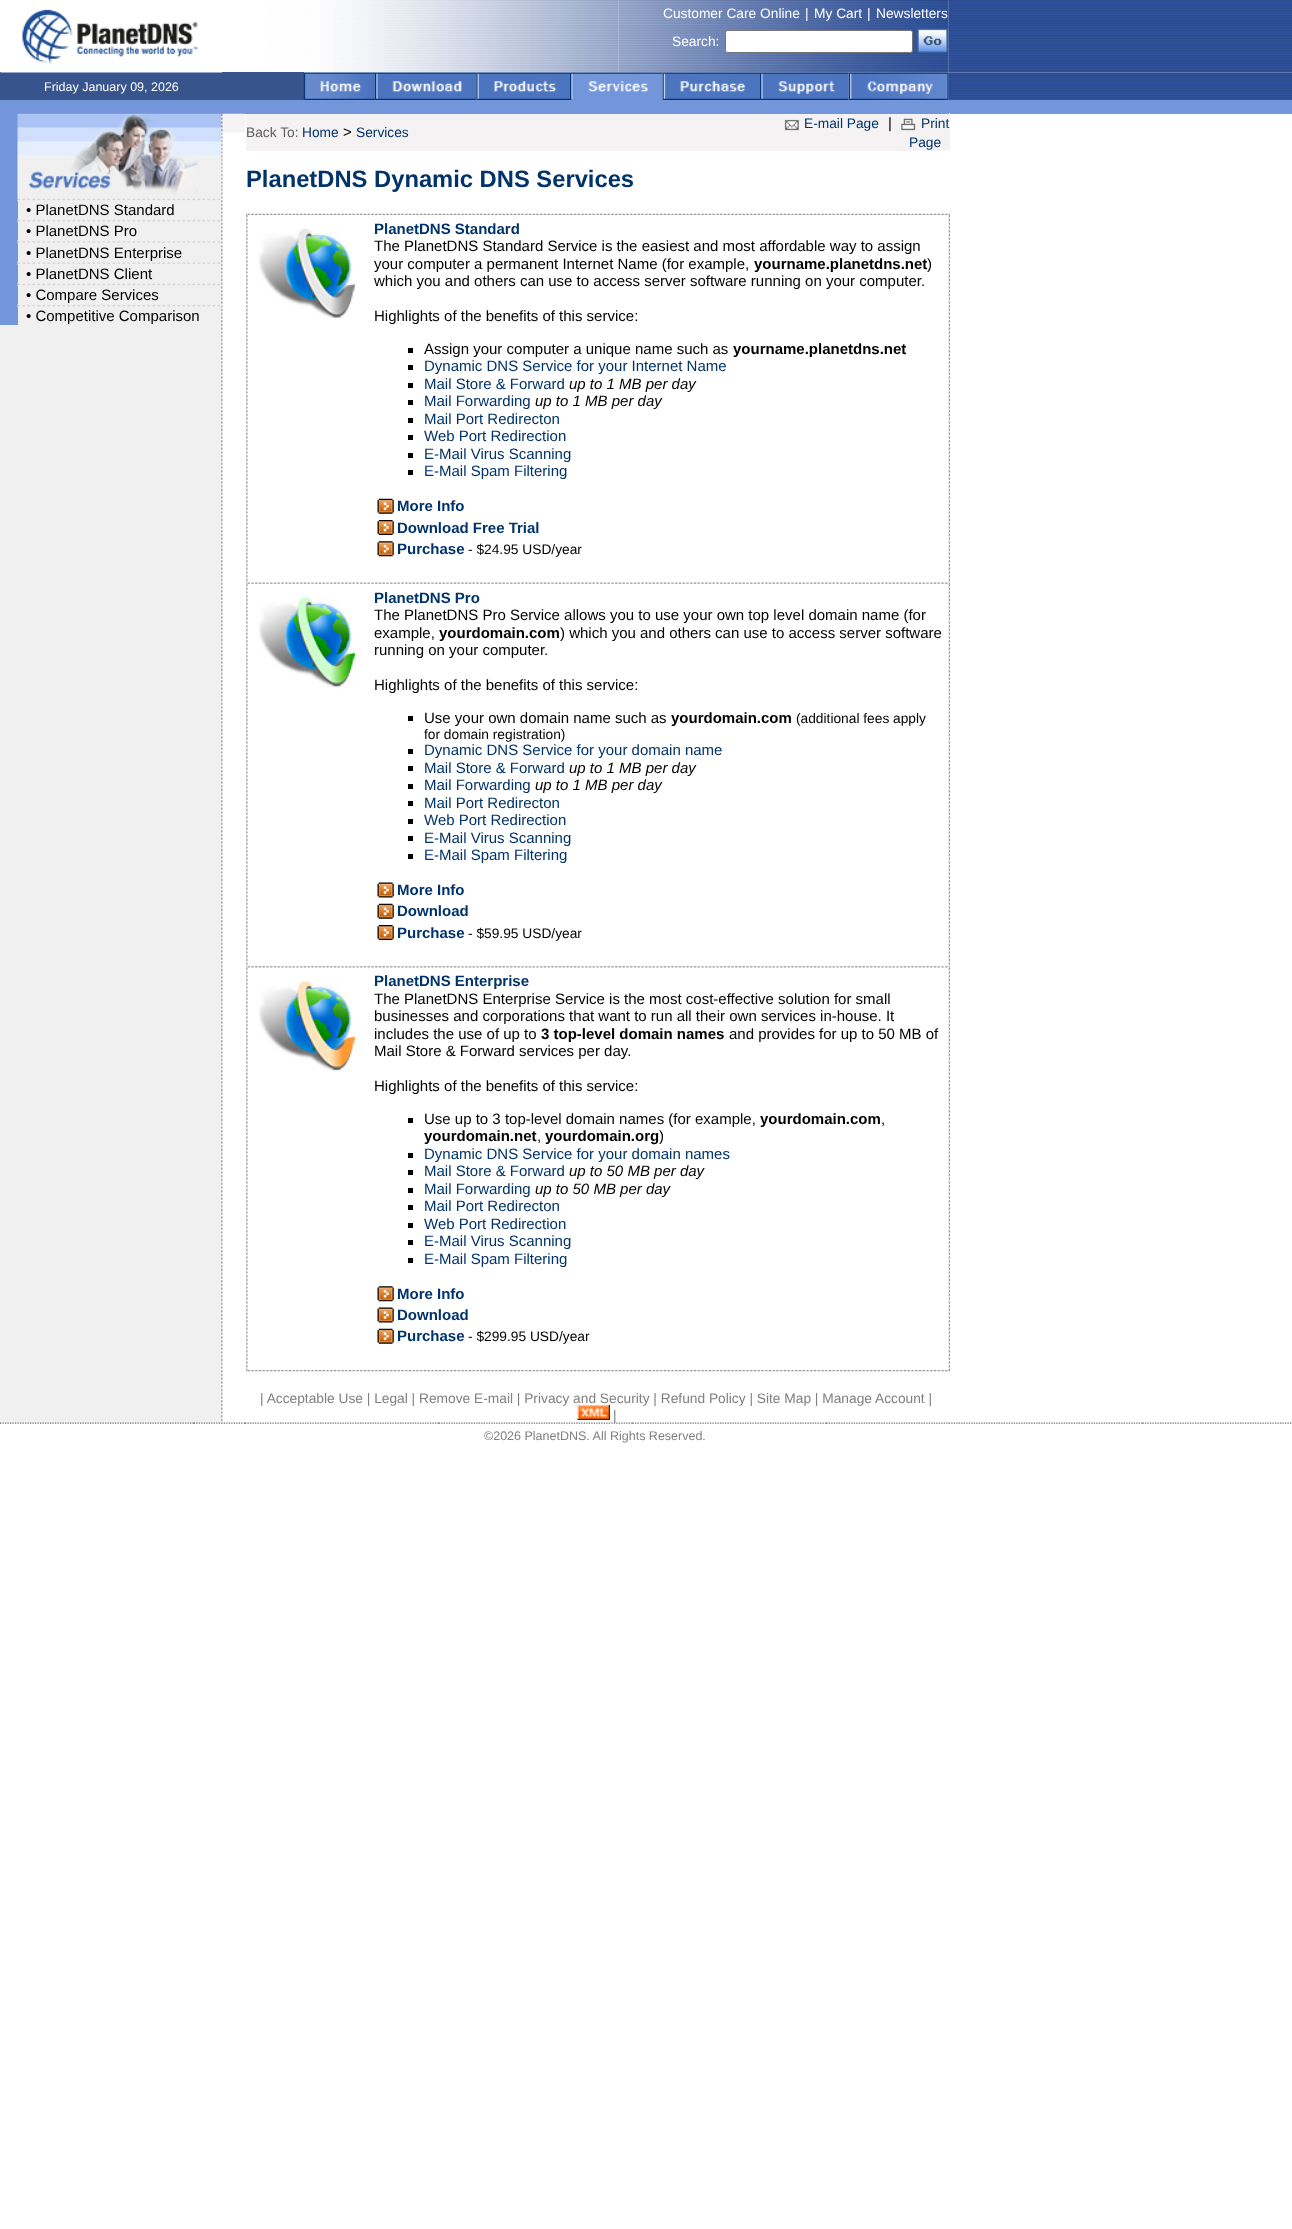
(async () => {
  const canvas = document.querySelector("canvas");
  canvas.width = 1292;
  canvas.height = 2229;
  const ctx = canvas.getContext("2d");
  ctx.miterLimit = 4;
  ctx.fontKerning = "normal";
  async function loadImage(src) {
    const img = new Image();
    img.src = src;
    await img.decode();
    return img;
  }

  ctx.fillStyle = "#ffffff";
  ctx.fillRect(0, 0, 1292, 2229);
  ctx.fillStyle = "#37558c";
  ctx.fillRect(0, 72, 222, 28);
  ctx.drawImage(await loadImage("img/1.png"), 0, 9, 223, 64);
  ctx.drawImage(await loadImage("img/3.png"), 618, 0, 331, 73);
  ctx.drawImage(await loadImage("img/2.png"), 222, 0, 397, 73);
  ctx.fillStyle = "#ffffff";
  ctx.beginPath();
  ctx.roundRect(725.5, 30.5, 187, 22, 2);
  ctx.fill();
  ctx.strokeStyle = "#767676";
  ctx.stroke();
  ctx.drawImage(await loadImage("img/4.png"), 917, 28, 31, 25);
  ctx.drawImage(await loadImage("img/5.png"), 948, 0, 344, 73);
  ctx.drawImage(await loadImage("img/6.png"), 0, 72, 2, 1);
  ctx.fillStyle = "#37558c";
  ctx.fillRect(222, 72, 82, 28);
  ctx.drawImage(await loadImage("img/7.png"), 303, 72, 72, 28);
  ctx.drawImage(await loadImage("img/8.png"), 375, 72, 102, 28);
  ctx.drawImage(await loadImage("img/9.png"), 476, 72, 94, 28);
  ctx.drawImage(await loadImage("img/10.png"), 570, 72, 93, 28);
  ctx.drawImage(await loadImage("img/11.png"), 662, 72, 98, 28);
  ctx.drawImage(await loadImage("img/12.png"), 760, 72, 89, 28);
  ctx.drawImage(await loadImage("img/14.png"), 948, 72, 344, 28);
  ctx.drawImage(await loadImage("img/13.png"), 848, 72, 101, 28);
  for (const [x, y, w, h, color] of [
    [949, 100, 343, 14, "#7396da"],
    [748, 113, 202, 38, "#f4f2f2"],
    [0, 100, 949, 14, "#7396da"],
    [0, 197, 221, 1226, "#f0f0f0"],
    [0, 114, 18, 211, "#7396da"],
  ]) {
    ctx.fillStyle = color;
    ctx.fillRect(x, y, w, h);
  }
  ctx.drawImage(await loadImage("img/22.png"), 221, 114, 2, 1275);
  ctx.drawImage(await loadImage("img/15.png"), 17, 113, 205, 85);
  ctx.drawImage(await loadImage("img/16.png"), 17, 197, 205, 5);
  ctx.drawImage(await loadImage("img/17.png"), 17, 218, 205, 5);
  ctx.drawImage(await loadImage("img/18.png"), 17, 240, 205, 4);
  ctx.drawImage(await loadImage("img/20.png"), 17, 282, 205, 5);
  ctx.drawImage(await loadImage("img/23.png"), 221, 113, 24, 20);
  ctx.fillStyle = "#f4f2f2";
  ctx.fillRect(246, 114, 502, 37);
  ctx.drawImage(await loadImage("img/24.png"), 784, 119, 15, 12);
  ctx.drawImage(await loadImage("img/25.png"), 901, 118, 15, 15);
  ctx.drawImage(await loadImage("img/26.png"), 246, 213, 2, 2);
  ctx.drawImage(await loadImage("img/27.png"), 247, 213, 702, 2);
  ctx.drawImage(await loadImage("img/28.png"), 948, 213, 2, 2);
  ctx.drawImage(await loadImage("img/29.png"), 246, 215, 2, 368);
  ctx.drawImage(await loadImage("img/30.png"), 258, 228, 98, 91);
  for (const [x, y, w, h, color] of [
    [408, 348, 5, 5, "#000000"],
    [408, 365, 5, 5, "#000000"],
    [408, 383, 5, 5, "#000000"],
    [408, 400, 5, 5, "#000000"],
    [408, 418, 5, 5, "#000000"],
    [408, 435, 5, 5, "#000000"],
    [408, 453, 5, 5, "#000000"],
    [408, 470, 5, 5, "#000000"],
  ]) {
    ctx.fillStyle = color;
    ctx.fillRect(x, y, w, h);
  }
  ctx.drawImage(await loadImage("img/31.png"), 377, 498, 17, 16);
  ctx.drawImage(await loadImage("img/32.png"), 377, 520, 17, 15);
  ctx.drawImage(await loadImage("img/33.png"), 377, 541, 17, 16);
  ctx.drawImage(await loadImage("img/34.png"), 948, 215, 2, 368);
  ctx.drawImage(await loadImage("img/35.png"), 246, 582, 2, 2);
  ctx.drawImage(await loadImage("img/36.png"), 247, 582, 702, 2);
  ctx.drawImage(await loadImage("img/37.png"), 948, 582, 2, 2);
  ctx.drawImage(await loadImage("img/38.png"), 246, 583, 2, 384);
  ctx.drawImage(await loadImage("img/39.png"), 258, 591, 104, 98);
  for (const [x, y, w, h, color] of [
    [408, 716, 5, 5, "#000000"],
    [408, 749, 5, 5, "#000000"],
    [408, 766, 5, 5, "#000000"],
    [408, 784, 5, 5, "#000000"],
    [408, 801, 5, 5, "#000000"],
    [408, 819, 5, 5, "#000000"],
    [408, 836, 5, 5, "#000000"],
    [408, 854, 5, 5, "#000000"],
  ]) {
    ctx.fillStyle = color;
    ctx.fillRect(x, y, w, h);
  }
  ctx.drawImage(await loadImage("img/40.png"), 377, 882, 17, 16);
  ctx.drawImage(await loadImage("img/31.png"), 377, 903, 17, 16);
  ctx.drawImage(await loadImage("img/32.png"), 377, 925, 17, 15);
  ctx.drawImage(await loadImage("img/41.png"), 948, 583, 2, 384);
  ctx.drawImage(await loadImage("img/42.png"), 246, 966, 2, 2);
  ctx.drawImage(await loadImage("img/43.png"), 247, 966, 702, 2);
  ctx.drawImage(await loadImage("img/44.png"), 948, 966, 2, 2);
  ctx.drawImage(await loadImage("img/45.png"), 246, 967, 2, 403);
  ctx.drawImage(await loadImage("img/46.png"), 258, 975, 105, 98);
  for (const [x, y, w, h, color] of [
    [408, 1118, 5, 5, "#000000"],
    [408, 1153, 5, 5, "#000000"],
    [408, 1170, 5, 5, "#000000"],
    [408, 1188, 5, 5, "#000000"],
    [408, 1205, 5, 5, "#000000"],
    [408, 1223, 5, 5, "#000000"],
    [408, 1240, 5, 5, "#000000"],
    [408, 1258, 5, 5, "#000000"],
  ]) {
    ctx.fillStyle = color;
    ctx.fillRect(x, y, w, h);
  }
  ctx.drawImage(await loadImage("img/33.png"), 377, 1286, 17, 16);
  ctx.drawImage(await loadImage("img/40.png"), 377, 1307, 17, 16);
  ctx.drawImage(await loadImage("img/31.png"), 377, 1328, 17, 16);
  ctx.drawImage(await loadImage("img/47.png"), 948, 968, 2, 402);
  ctx.drawImage(await loadImage("img/48.png"), 246, 1370, 2, 2);
  ctx.drawImage(await loadImage("img/49.png"), 247, 1370, 702, 2);
  ctx.drawImage(await loadImage("img/50.png"), 948, 1370, 2, 2);
  ctx.drawImage(await loadImage("img/51.png"), 221, 1389, 2, 34);
  ctx.drawImage(await loadImage("img/53.png"), 0, 1422, 222, 2);
  ctx.drawImage(await loadImage("img/54.png"), 221, 1422, 24, 2);
  ctx.drawImage(await loadImage("img/55.png"), 245, 1422, 704, 2);
  ctx.drawImage(await loadImage("img/56.png"), 948, 1422, 344, 2);
  ctx.font = "13.75px Liberation Sans";
  ctx.fillStyle = "#fefefe";
  for (const [text, x, y] of [
    ["Customer Care Online", 663, 18],
    ["|", 805, 18],
    ["My Cart", 814, 18],
    ["|", 867, 18],
    ["Newsletters", 876, 18],
    ["Search:", 672, 46],
  ]) {
    ctx.fillText(text, x, y);
  }
  ctx.font = "12.5px Liberation Sans";
  ctx.fillText("Friday January 09, 2026", 44, 91);
  ctx.font = "15px Liberation Sans";
  ctx.fillStyle = "#000000";
  for (const [text, x, y] of [
    ["• PlanetDNS Standard", 26, 215],
    ["• PlanetDNS Pro", 26, 236],
    ["• PlanetDNS Enterprise", 26, 258],
  ]) {
    ctx.fillText(text, x, y);
  }
  ctx.drawImage(await loadImage("img/19.png"), 17, 261, 205, 4);
  ctx.fillText("• PlanetDNS Client", 26, 279);
  ctx.fillText("• Compare Services", 26, 300);
  ctx.drawImage(await loadImage("img/21.png"), 17, 303, 205, 5);
  ctx.fillText("• Competitive Comparison", 26, 321);
  ctx.font = "13.75px Liberation Sans";
  ctx.fillStyle = "#606060";
  ctx.fillText("Back To:", 246, 137);
  ctx.fillStyle = "#003369";
  ctx.fillText("Home", 302, 137);
  ctx.font = "15px Liberation Sans";
  ctx.fillStyle = "#000000";
  ctx.fillText(">", 343, 137);
  ctx.font = "13.75px Liberation Sans";
  ctx.fillStyle = "#003369";
  ctx.fillText("Services", 356, 137);
  ctx.fillText("E-mail Page", 804, 128);
  ctx.font = "15px Liberation Sans";
  ctx.fillStyle = "#000000";
  ctx.fillText("|", 888, 128);
  ctx.font = "13.75px Liberation Sans";
  ctx.fillStyle = "#003369";
  ctx.fillText("Print", 921, 128);
  ctx.fillText("Page", 909, 147);
  ctx.font = "bold 23.75px Liberation Sans";
  ctx.fillText("PlanetDNS Dynamic DNS Services", 246, 187);
  ctx.font = "bold 15px Liberation Sans";
  ctx.fillText("PlanetDNS Standard", 374, 234);
  ctx.font = "15px Liberation Sans";
  ctx.fillStyle = "#000000";
  ctx.fillText("The PlanetDNS Standard Service is the easiest and most affordable way to assign", 374, 251);
  ctx.fillText("your computer a permanent Internet Name (for example,", 374, 269);
  ctx.font = "bold 15px Liberation Sans";
  ctx.fillText("yourname.planetdns.net", 754, 269);
  ctx.font = "15px Liberation Sans";
  for (const [text, x, y] of [
    [")", 927, 269],
    ["which you and others can use to access server software running on your computer.", 374, 286],
    ["Highlights of the benefits of this service:", 374, 321],
    ["Assign your computer a unique name such as", 424, 354],
  ]) {
    ctx.fillText(text, x, y);
  }
  ctx.font = "bold 15px Liberation Sans";
  ctx.fillText("yourname.planetdns.net", 733, 354);
  ctx.font = "15px Liberation Sans";
  ctx.fillStyle = "#003369";
  ctx.fillText("Dynamic DNS Service for your Internet Name", 424, 371);
  ctx.fillText("Mail Store & Forward", 424, 389);
  ctx.font = "italic 15px Liberation Sans";
  ctx.fillStyle = "#000000";
  ctx.fillText("up to 1 MB per day", 569, 389);
  ctx.font = "15px Liberation Sans";
  ctx.fillStyle = "#003369";
  ctx.fillText("Mail Forwarding", 424, 406);
  ctx.font = "italic 15px Liberation Sans";
  ctx.fillStyle = "#000000";
  ctx.fillText("up to 1 MB per day", 535, 406);
  ctx.font = "15px Liberation Sans";
  ctx.fillStyle = "#003369";
  for (const [text, x, y] of [
    ["Mail Port Redirecton", 424, 424],
    ["Web Port Redirection", 424, 441],
    ["E-Mail Virus Scanning", 424, 459],
    ["E-Mail Spam Filtering", 424, 476],
  ]) {
    ctx.fillText(text, x, y);
  }
  ctx.font = "bold 15px Liberation Sans";
  for (const [text, x, y] of [
    ["More Info", 397, 511],
    ["Download Free Trial", 397, 533],
    ["Purchase", 397, 554],
  ]) {
    ctx.fillText(text, x, y);
  }
  ctx.font = "13.75px Liberation Sans";
  ctx.fillStyle = "#000000";
  ctx.fillText("- $24.95 USD/year", 468, 554);
  ctx.font = "bold 15px Liberation Sans";
  ctx.fillStyle = "#003369";
  ctx.fillText("PlanetDNS Pro", 374, 603);
  ctx.font = "15px Liberation Sans";
  ctx.fillStyle = "#000000";
  ctx.fillText("The PlanetDNS Pro Service allows you to use your own top level domain name (for", 374, 620);
  ctx.fillText("example,", 374, 638);
  ctx.font = "bold 15px Liberation Sans";
  ctx.fillText("yourdomain.com", 439, 638);
  ctx.font = "15px Liberation Sans";
  for (const [text, x, y] of [
    [") which you and others can use to access server software", 560, 638],
    ["running on your computer.", 374, 655],
    ["Highlights of the benefits of this service:", 374, 690],
    ["Use your own domain name such as", 424, 723],
  ]) {
    ctx.fillText(text, x, y);
  }
  ctx.font = "bold 15px Liberation Sans";
  ctx.fillText("yourdomain.com", 671, 723);
  ctx.font = "13.75px Liberation Sans";
  ctx.fillText("(additional fees apply", 796, 723);
  ctx.fillText("for domain registration)", 424, 739);
  ctx.font = "15px Liberation Sans";
  ctx.fillStyle = "#003369";
  ctx.fillText("Dynamic DNS Service for your domain name", 424, 755);
  ctx.fillText("Mail Store & Forward", 424, 773);
  ctx.font = "italic 15px Liberation Sans";
  ctx.fillStyle = "#000000";
  ctx.fillText("up to 1 MB per day", 569, 773);
  ctx.font = "15px Liberation Sans";
  ctx.fillStyle = "#003369";
  ctx.fillText("Mail Forwarding", 424, 790);
  ctx.font = "italic 15px Liberation Sans";
  ctx.fillStyle = "#000000";
  ctx.fillText("up to 1 MB per day", 535, 790);
  ctx.font = "15px Liberation Sans";
  ctx.fillStyle = "#003369";
  for (const [text, x, y] of [
    ["Mail Port Redirecton", 424, 808],
    ["Web Port Redirection", 424, 825],
    ["E-Mail Virus Scanning", 424, 843],
    ["E-Mail Spam Filtering", 424, 860],
  ]) {
    ctx.fillText(text, x, y);
  }
  ctx.font = "bold 15px Liberation Sans";
  for (const [text, x, y] of [
    ["More Info", 397, 895],
    ["Download", 397, 916],
    ["Purchase", 397, 938],
  ]) {
    ctx.fillText(text, x, y);
  }
  ctx.font = "13.75px Liberation Sans";
  ctx.fillStyle = "#000000";
  ctx.fillText("- $59.95 USD/year", 468, 938);
  ctx.font = "bold 15px Liberation Sans";
  ctx.fillStyle = "#003369";
  ctx.fillText("PlanetDNS Enterprise", 374, 986);
  ctx.font = "15px Liberation Sans";
  ctx.fillStyle = "#000000";
  for (const [text, x, y] of [
    ["The PlanetDNS Enterprise Service is the most cost-effective solution for small", 374, 1004],
    ["businesses and corporations that want to run all their own services in-house. It", 374, 1021],
    ["includes the use of up to", 374, 1039],
  ]) {
    ctx.fillText(text, x, y);
  }
  ctx.font = "bold 15px Liberation Sans";
  ctx.fillText("3 top-level domain names", 541, 1039);
  ctx.font = "15px Liberation Sans";
  for (const [text, x, y] of [
    ["and provides for up to 50 MB of", 729, 1039],
    ["Mail Store & Forward services per day.", 374, 1056],
    ["Highlights of the benefits of this service:", 374, 1091],
    ["Use up to 3 top-level domain names (for example,", 424, 1124],
  ]) {
    ctx.fillText(text, x, y);
  }
  ctx.font = "bold 15px Liberation Sans";
  ctx.fillText("yourdomain.com", 760, 1124);
  ctx.font = "15px Liberation Sans";
  ctx.fillText(",", 881, 1124);
  ctx.font = "bold 15px Liberation Sans";
  ctx.fillText("yourdomain.net", 424, 1141);
  ctx.font = "15px Liberation Sans";
  ctx.fillText(",", 537, 1141);
  ctx.font = "bold 15px Liberation Sans";
  ctx.fillText("yourdomain.org", 545, 1141);
  ctx.font = "15px Liberation Sans";
  ctx.fillText(")", 659, 1141);
  ctx.fillStyle = "#003369";
  ctx.fillText("Dynamic DNS Service for your domain names", 424, 1159);
  ctx.fillText("Mail Store & Forward", 424, 1176);
  ctx.font = "italic 15px Liberation Sans";
  ctx.fillStyle = "#000000";
  ctx.fillText("up to 50 MB per day", 569, 1176);
  ctx.font = "15px Liberation Sans";
  ctx.fillStyle = "#003369";
  ctx.fillText("Mail Forwarding", 424, 1194);
  ctx.font = "italic 15px Liberation Sans";
  ctx.fillStyle = "#000000";
  ctx.fillText("up to 50 MB per day", 535, 1194);
  ctx.font = "15px Liberation Sans";
  ctx.fillStyle = "#003369";
  for (const [text, x, y] of [
    ["Mail Port Redirecton", 424, 1211],
    ["Web Port Redirection", 424, 1229],
    ["E-Mail Virus Scanning", 424, 1246],
    ["E-Mail Spam Filtering", 424, 1264],
  ]) {
    ctx.fillText(text, x, y);
  }
  ctx.font = "bold 15px Liberation Sans";
  for (const [text, x, y] of [
    ["More Info", 397, 1299],
    ["Download", 397, 1320],
    ["Purchase", 397, 1341],
  ]) {
    ctx.fillText(text, x, y);
  }
  ctx.font = "13.75px Liberation Sans";
  ctx.fillStyle = "#000000";
  ctx.fillText("- $299.95 USD/year", 468, 1341);
  ctx.fillStyle = "#808080";
  ctx.fillText("| Acceptable Use | Legal | Remove E-mail | Privacy and Security | Refund Policy | Site Map | Manage Account |", 260, 1403);
  ctx.drawImage(await loadImage("img/52.png"), 577, 1405, 33, 15);
  ctx.fillText("|", 613, 1420);
  ctx.font = "12.5px Liberation Sans";
  ctx.fillText("©2026 PlanetDNS. All Rights Reserved.", 484, 1440);
})();
